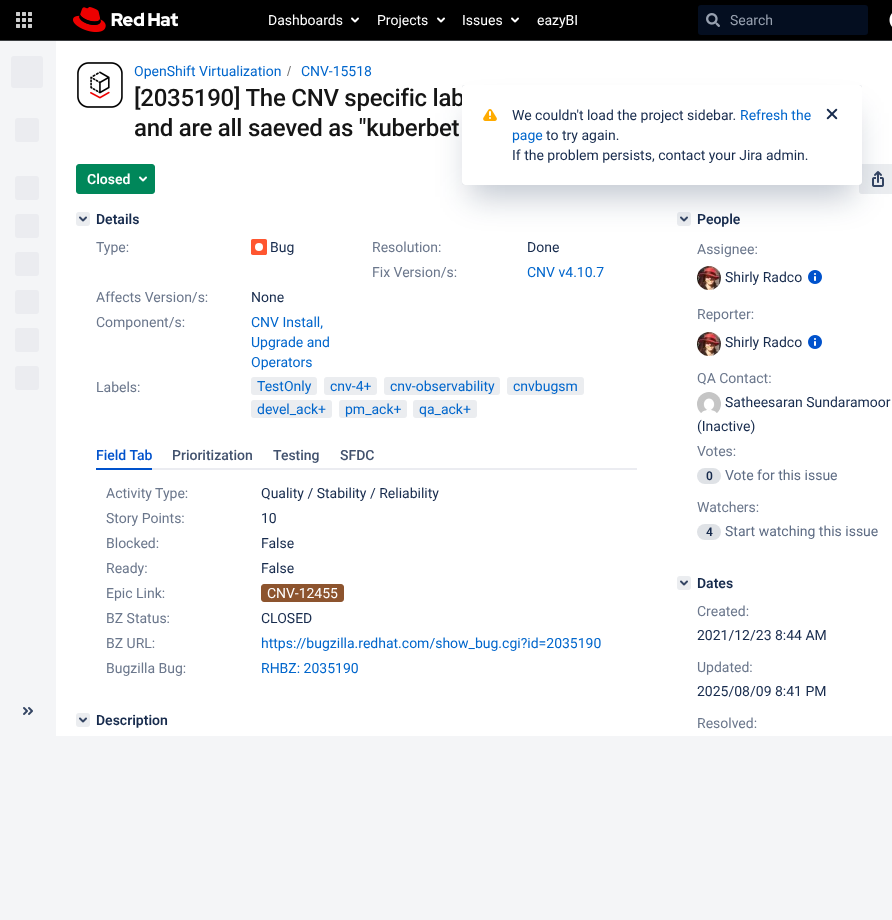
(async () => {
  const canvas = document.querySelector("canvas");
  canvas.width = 892;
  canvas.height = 920;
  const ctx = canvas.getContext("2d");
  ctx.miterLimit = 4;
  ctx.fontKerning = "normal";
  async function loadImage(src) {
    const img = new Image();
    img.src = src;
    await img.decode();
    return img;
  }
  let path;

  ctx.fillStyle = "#f4f5f7";
  ctx.fillRect(0, 0, 892, 920);
  ctx.fillStyle = "#000000";
  ctx.fillRect(0, 0, 892, 40);
  ctx.fillStyle = "#3c3f42";
  ctx.fillRect(0, 40, 892, 1);
  ctx.drawImage(await loadImage("img/1.png"), 16, 12, 16, 16);
  ctx.drawImage(await loadImage("img/2.png"), 73, 7, 105, 25);
  ctx.drawImage(await loadImage("img/3.png"), 351, 17, 8, 6);
  ctx.drawImage(await loadImage("img/3.png"), 437, 17, 8, 6);
  ctx.drawImage(await loadImage("img/3.png"), 511, 17, 8, 6);
  ctx.fillStyle = "#040e20";
  ctx.beginPath();
  ctx.roundRect(698, 5, 170, 30, 3);
  ctx.fill();
  ctx.drawImage(await loadImage("img/4.png"), 706, 13, 14, 14);
  ctx.drawImage(await loadImage("img/5.png"), 889, 13, 3, 14);
  ctx.fillStyle = "#ebecf0";
  ctx.beginPath();
  ctx.roundRect(11, 56, 32, 32, 3);
  ctx.fill();
  ctx.beginPath();
  ctx.roundRect(15, 118, 24, 24, 3);
  ctx.fill();
  ctx.beginPath();
  ctx.roundRect(15, 176, 24, 24, 3);
  ctx.fill();
  ctx.beginPath();
  ctx.roundRect(15, 214, 24, 24, 3);
  ctx.fill();
  ctx.beginPath();
  ctx.roundRect(15, 252, 24, 24, 3);
  ctx.fill();
  ctx.beginPath();
  ctx.roundRect(15, 290, 24, 24, 3);
  ctx.fill();
  ctx.beginPath();
  ctx.roundRect(15, 328, 24, 24, 3);
  ctx.fill();
  ctx.beginPath();
  ctx.roundRect(15, 366, 24, 24, 3);
  ctx.fill();
  ctx.drawImage(await loadImage("img/6.png"), 23, 707, 10, 8);
  ctx.fillStyle = "#ffffff";
  ctx.fillRect(56, 41, 836, 695);
  ctx.drawImage(await loadImage("img/7.png"), 77, 62, 46, 46);
  ctx.fillStyle = "#707070";
  path = new Path2D("M288 76L291 66H290L287 76Z");
  ctx.fill(path);
  ctx.fillStyle = "#00875a";
  ctx.beginPath();
  ctx.roundRect(76.5, 164.5, 78, 29, 2.5);
  ctx.fill();
  ctx.strokeStyle = "#00875a";
  ctx.stroke();
  ctx.drawImage(await loadImage("img/8.png"), 139, 176, 8, 6);
  ctx.fillStyle = "#ebedf0";
  ctx.beginPath();
  ctx.roundRect(859, 164, 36, 30, 3);
  ctx.fill();
  ctx.drawImage(await loadImage("img/9.png"), 872, 171, 12, 16);
  ctx.beginPath();
  ctx.roundRect(76, 212, 14, 14, 3);
  ctx.fill();
  ctx.drawImage(await loadImage("img/10.png"), 79, 216, 8, 6);
  ctx.drawImage(await loadImage("img/11.png"), 251, 239, 16, 16);
  ctx.beginPath();
  ctx.roundRect(251, 377, 66, 18, 3);
  ctx.fill();
  ctx.beginPath();
  ctx.roundRect(324, 377, 53, 18, 3);
  ctx.fill();
  ctx.beginPath();
  ctx.roundRect(384, 377, 116, 18, 3);
  ctx.fill();
  ctx.beginPath();
  ctx.roundRect(507, 377, 77, 18, 3);
  ctx.fill();
  ctx.beginPath();
  ctx.roundRect(251, 400, 81, 18, 3);
  ctx.fill();
  ctx.beginPath();
  ctx.roundRect(339, 400, 68, 18, 3);
  ctx.fill();
  ctx.beginPath();
  ctx.roundRect(413, 400, 64, 18, 3);
  ctx.fill();
  ctx.fillStyle = "#0052cc";
  ctx.fillRect(96, 468, 56, 2);
  ctx.fillStyle = "#ebecf1";
  ctx.fillRect(152, 468, 485, 2);
  ctx.fillStyle = "#8d542e";
  ctx.beginPath();
  ctx.roundRect(261.5, 584.5, 82, 17, 2.5);
  ctx.fill();
  ctx.strokeStyle = "#8d542e";
  ctx.stroke();
  ctx.fillStyle = "#ebedf0";
  ctx.beginPath();
  ctx.roundRect(76, 713, 14, 14, 3);
  ctx.fill();
  ctx.drawImage(await loadImage("img/10.png"), 79, 717, 8, 6);
  ctx.beginPath();
  ctx.roundRect(677, 212, 14, 14, 3);
  ctx.fill();
  ctx.drawImage(await loadImage("img/10.png"), 680, 216, 8, 6);
  ctx.drawImage(await loadImage("img/12.png"), 697, 266, 24, 24);
  ctx.drawImage(await loadImage("img/13.png"), 808, 270, 14, 14);
  ctx.drawImage(await loadImage("img/12.png"), 697, 332, 24, 24);
  ctx.drawImage(await loadImage("img/13.png"), 808, 335, 14, 14);
  ctx.drawImage(await loadImage("img/14.png"), 697, 392, 24, 21);
  ctx.fillStyle = "#dfe2e6";
  ctx.beginPath();
  ctx.roundRect(697, 468, 24, 16, 8);
  ctx.fill();
  ctx.beginPath();
  ctx.roundRect(697, 524, 24, 16, 8);
  ctx.fill();
  ctx.fillStyle = "#ebedf0";
  ctx.beginPath();
  ctx.roundRect(677, 576, 14, 14, 3);
  ctx.fill();
  ctx.drawImage(await loadImage("img/10.png"), 680, 580, 8, 6);
  ctx.fillStyle = "rgba(9, 30, 66, 0.25)";
  ctx.filter = "blur(0.5px)";
  ctx.beginPath();
  ctx.roundRect(462, 85, 400, 100, 3);
  ctx.fill();
  ctx.filter = "none";
  ctx.filter = "blur(16px)";
  ctx.beginPath();
  ctx.rect(470, 113, 384, 84);
  ctx.fill();
  ctx.filter = "none";
  ctx.font = "14px Roboto";
  ctx.fillStyle = "#ffffff";
  for (const [text, x, y] of [
    ["Dashboards", 268, 25],
    ["Projects", 377, 25],
    ["Issues", 462, 25],
    ["eazyBI", 537, 25],
  ]) {
    ctx.fillText(text, x, y);
  }
  ctx.fillStyle = "#97a0af";
  ctx.fillText("Search", 730, 25);
  ctx.fillStyle = "#0066cc";
  ctx.fillText("OpenShift Virtualization", 134, 76);
  ctx.fillText("CNV-15518", 301, 76);
  ctx.letterSpacing = "-0.25px";
  ctx.font = "500 24px Roboto";
  ctx.fillStyle = "#151515";
  ctx.fillText("[2035190] The CNV specific lab", 134, 106);
  ctx.fillText("and are all saeved as \"kuberbet", 134, 136);
  ctx.letterSpacing = "0px";
  ctx.font = "600 14px Roboto";
  ctx.fillStyle = "#ffffff";
  ctx.fillText("Closed", 87, 184);
  ctx.fillStyle = "#172b4d";
  ctx.fillText("Details", 96, 224);
  ctx.font = "14px Roboto";
  ctx.fillStyle = "#6b778c";
  ctx.fillText("Type:", 96, 252);
  ctx.fillStyle = "#172b4d";
  ctx.fillText("Bug", 270, 252);
  ctx.fillStyle = "#6b778c";
  ctx.fillText("Resolution:", 372, 252);
  ctx.fillStyle = "#172b4d";
  ctx.fillText("Done", 527, 252);
  ctx.fillStyle = "#6b778c";
  ctx.fillText("Fix Version/s:", 372, 277);
  ctx.fillStyle = "#0066cc";
  ctx.fillText("CNV v4.10.7", 527, 277);
  ctx.fillStyle = "#6b778c";
  ctx.fillText("Affects Version/s:", 96, 302);
  ctx.fillStyle = "#172b4d";
  ctx.fillText("None", 251, 302);
  ctx.fillStyle = "#6b778c";
  ctx.fillText("Component/s:", 96, 327);
  ctx.fillStyle = "#0066cc";
  for (const [text, x, y] of [
    ["CNV Install,", 251, 327],
    ["Upgrade and", 251, 347],
    ["Operators", 251, 367],
  ]) {
    ctx.fillText(text, x, y);
  }
  ctx.fillStyle = "#6b778c";
  ctx.fillText("Labels:", 96, 392);
  ctx.fillStyle = "#0066cc";
  for (const [text, x, y] of [
    ["TestOnly", 257, 391],
    ["cnv-4+", 330, 391],
    ["cnv-observability", 390, 391],
    ["cnvbugsm", 513, 391],
    ["devel_ack+", 257, 414],
    ["pm_ack+", 345, 414],
    ["qa_ack+", 419, 414],
  ]) {
    ctx.fillText(text, x, y);
  }
  ctx.font = "500 14px Roboto";
  ctx.fillStyle = "#0052cc";
  ctx.fillText("Field Tab", 96, 460);
  ctx.fillStyle = "#42526e";
  for (const [text, x, y] of [
    ["Prioritization", 172, 460],
    ["Testing", 273, 460],
    ["SFDC", 340, 460],
  ]) {
    ctx.fillText(text, x, y);
  }
  ctx.font = "14px Roboto";
  ctx.fillStyle = "#6b778c";
  ctx.fillText("Activity Type:", 106, 498);
  ctx.fillStyle = "#172b4d";
  ctx.fillText("Quality / Stability / Reliability", 261, 498);
  ctx.fillStyle = "#6b778c";
  ctx.fillText("Story Points:", 106, 523);
  ctx.fillStyle = "#172b4d";
  ctx.fillText("10", 261, 523);
  ctx.fillStyle = "#6b778c";
  ctx.fillText("Blocked:", 106, 548);
  ctx.fillStyle = "#172b4d";
  ctx.fillText("False", 261, 548);
  ctx.fillStyle = "#6b778c";
  ctx.fillText("Ready:", 106, 573);
  ctx.fillStyle = "#172b4d";
  ctx.fillText("False", 261, 573);
  ctx.fillStyle = "#6b778c";
  ctx.fillText("Epic Link:", 106, 598);
  ctx.fillStyle = "#ffffff";
  ctx.fillText("CNV-12455", 267, 598);
  ctx.fillStyle = "#6b778c";
  ctx.fillText("BZ Status:", 106, 623);
  ctx.fillStyle = "#172b4d";
  ctx.fillText("CLOSED", 261, 623);
  ctx.fillStyle = "#6b778c";
  ctx.fillText("BZ URL:", 106, 648);
  ctx.fillStyle = "#0066cc";
  ctx.fillText("https://bugzilla.redhat.com/show_bug.cgi?id=2035190", 261, 648);
  ctx.fillStyle = "#6b778c";
  ctx.fillText("Bugzilla Bug:", 106, 673);
  ctx.fillStyle = "#0066cc";
  ctx.fillText("RHBZ: 2035190", 261, 673);
  ctx.font = "600 14px Roboto";
  ctx.fillStyle = "#172b4d";
  ctx.fillText("Description", 96, 725);
  ctx.fillText("People", 697, 224);
  ctx.font = "14px Roboto";
  ctx.fillStyle = "#6b778c";
  ctx.fillText("Assignee:", 697, 254);
  ctx.fillStyle = "#172b4d";
  ctx.fillText("Shirly Radco", 725, 282);
  ctx.fillStyle = "#6b778c";
  ctx.fillText("Reporter:", 697, 319);
  ctx.fillStyle = "#172b4d";
  ctx.fillText("Shirly Radco", 725, 347);
  ctx.fillStyle = "#6b778c";
  ctx.fillText("QA Contact:", 697, 383);
  ctx.fillStyle = "#172b4d";
  ctx.fillText("Satheesaran Sundaramoor", 725, 407);
  ctx.fillText("(Inactive)", 697, 431);
  ctx.fillStyle = "#6b778c";
  ctx.fillText("Votes:", 697, 456);
  ctx.font = "600 12px Roboto";
  ctx.fillStyle = "#172b4d";
  ctx.fillText("0", 706, 480);
  ctx.font = "14px Roboto";
  ctx.fillStyle = "#5e6c84";
  ctx.fillText("Vote for this issue", 725, 480);
  ctx.fillStyle = "#6b778c";
  ctx.fillText("Watchers:", 697, 512);
  ctx.font = "600 12px Roboto";
  ctx.fillStyle = "#172b4d";
  ctx.fillText("4", 706, 536);
  ctx.font = "14px Roboto";
  ctx.fillStyle = "#5e6c84";
  ctx.fillText("Start watching this issue", 725, 536);
  ctx.font = "600 14px Roboto";
  ctx.fillStyle = "#172b4d";
  ctx.fillText("Dates", 697, 588);
  ctx.font = "14px Roboto";
  ctx.fillStyle = "#6b778c";
  ctx.fillText("Created:", 697, 616);
  ctx.fillStyle = "#172b4d";
  ctx.fillText("2021/12/23 8:44 AM", 697, 640);
  ctx.fillStyle = "#6b778c";
  ctx.fillText("Updated:", 697, 672);
  ctx.fillStyle = "#172b4d";
  ctx.fillText("2025/08/09 8:41 PM", 697, 696);
  ctx.fillStyle = "#6b778c";
  ctx.fillText("Resolved:", 697, 728);
  ctx.fillStyle = "#ffffff";
  ctx.beginPath();
  ctx.roundRect(462, 85, 400, 100, 3);
  ctx.fill();
  ctx.drawImage(await loadImage("img/15.png"), 483, 109, 14, 12);
  ctx.fillStyle = "#172b4d";
  ctx.fillText("We couldn't load the project sidebar.", 512, 120);
  ctx.fillStyle = "#0066cc";
  ctx.fillText("Refresh the", 740, 120);
  ctx.drawImage(await loadImage("img/16.png"), 826, 108, 12, 12);
  ctx.fillText("page", 512, 140);
  ctx.fillStyle = "#172b4d";
  ctx.fillText("to try again.", 546, 140);
  ctx.fillText("If the problem persists, contact your Jira admin.", 512, 160);
})();
